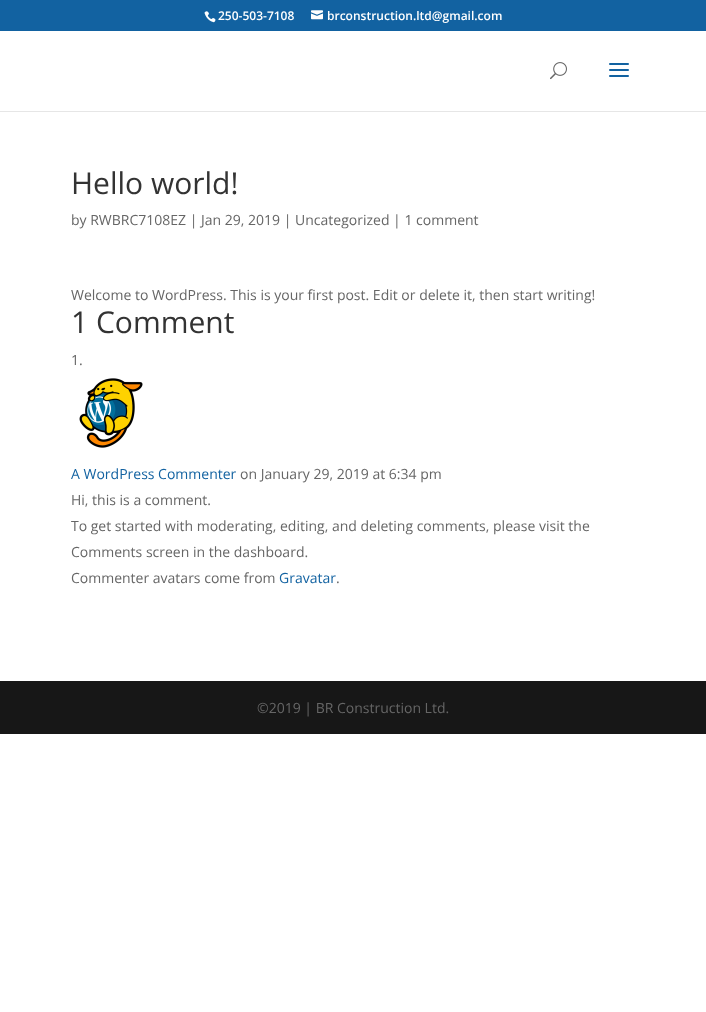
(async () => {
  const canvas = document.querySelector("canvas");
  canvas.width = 706;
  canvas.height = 1012;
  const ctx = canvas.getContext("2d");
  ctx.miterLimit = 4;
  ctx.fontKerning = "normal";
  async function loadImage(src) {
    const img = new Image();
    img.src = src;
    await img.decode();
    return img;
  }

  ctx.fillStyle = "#ffffff";
  ctx.fillRect(0, 0, 706, 1012);
  ctx.fillStyle = "#1262a1";
  ctx.fillRect(0, 0, 706, 31);
  ctx.drawImage(await loadImage("img/1.png"), 204, 11, 12, 12);
  ctx.drawImage(await loadImage("img/2.png"), 311, 10, 12, 10);
  ctx.fillStyle = "#e6e6e6";
  ctx.fillRect(0, 111, 706, 1);
  ctx.drawImage(await loadImage("img/3.png"), 550, 62, 17, 18);
  ctx.drawImage(await loadImage("img/4.png"), 609, 63, 20, 14);
  ctx.drawImage(await loadImage("img/5.png"), 79, 378, 64, 70);
  ctx.fillStyle = "#171717";
  ctx.fillRect(0, 681, 706, 53);
  ctx.font = "600 12px Open Sans";
  ctx.fillStyle = "#ffffff";
  ctx.fillText("250-503-7108", 218, 20);
  ctx.fillText("brconstruction.ltd@gmail.com", 327, 20);
  ctx.font = "30px Open Sans";
  ctx.fillStyle = "#333333";
  ctx.fillText("Hello world!", 71, 194);
  ctx.font = "14px Open Sans";
  ctx.fillStyle = "#666666";
  ctx.fillText("by RWBRC7108EZ | Jan 29, 2019 | Uncategorized | 1 comment", 71, 225);
  ctx.fillText("Welcome to WordPress. This is your first post. Edit or delete it, then start writing!", 71, 300);
  ctx.font = "30px Open Sans";
  ctx.fillStyle = "#333333";
  ctx.fillText("1 Comment", 71, 333);
  ctx.font = "14px Open Sans";
  ctx.fillStyle = "#666666";
  ctx.fillText("1.", 71, 365);
  ctx.fillStyle = "#1262a1";
  ctx.fillText("A WordPress Commenter", 71, 479);
  ctx.fillStyle = "#666666";
  for (const [text, x, y] of [
    ["on January 29, 2019 at 6:34 pm", 240, 479],
    ["Hi, this is a comment.", 71, 505],
    ["To get started with moderating, editing, and deleting comments, please visit the", 71, 531],
    ["Comments screen in the dashboard.", 71, 557],
    ["Commenter avatars come from", 71, 583],
  ]) {
    ctx.fillText(text, x, y);
  }
  ctx.fillStyle = "#1262a1";
  ctx.fillText("Gravatar", 279, 583);
  ctx.fillStyle = "#666666";
  ctx.fillText(".", 336, 583);
  ctx.fillText("©2019 | BR Construction Ltd.", 257, 713);
})();
